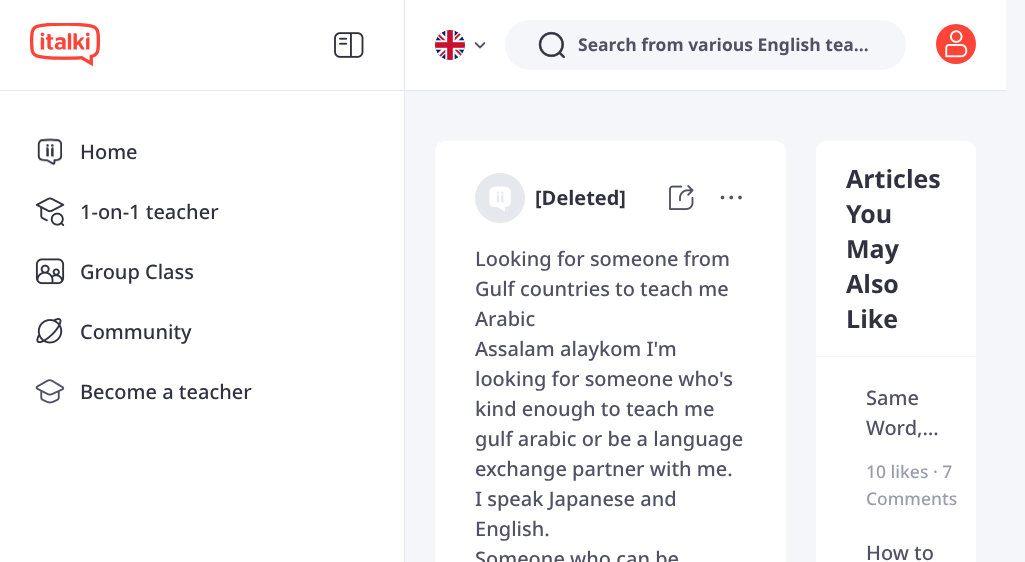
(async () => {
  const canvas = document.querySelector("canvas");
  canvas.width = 1025;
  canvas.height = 562;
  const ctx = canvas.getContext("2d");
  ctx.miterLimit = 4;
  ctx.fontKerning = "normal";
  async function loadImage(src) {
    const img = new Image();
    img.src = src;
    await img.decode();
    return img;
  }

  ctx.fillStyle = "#f5f6f9";
  ctx.fillRect(0, 0, 1025, 562);
  for (const [x, y, w, h, color] of [
    [0, 0, 404, 562, "#ffffff"],
    [404, 0, 1, 562, "#e5e8ed"],
    [0, 90, 404, 1, "#e5e8ed"],
  ]) {
    ctx.fillStyle = color;
    ctx.fillRect(x, y, w, h);
  }
  ctx.drawImage(await loadImage("img/1.png"), 30, 23, 70, 44);
  ctx.drawImage(await loadImage("img/2.png"), 334, 32, 30, 26);
  ctx.drawImage(await loadImage("img/3.png"), 37, 138, 25, 28);
  ctx.drawImage(await loadImage("img/4.png"), 35, 197, 30, 29);
  ctx.drawImage(await loadImage("img/5.png"), 35, 258, 30, 27);
  ctx.drawImage(await loadImage("img/6.png"), 36, 318, 27, 26);
  ctx.drawImage(await loadImage("img/7.png"), 35, 379, 30, 25);
  ctx.fillStyle = "#ffffff";
  ctx.fillRect(405, 0, 601, 90);
  ctx.fillStyle = "#e5e8ed";
  ctx.fillRect(405, 90, 601, 1);
  ctx.fillStyle = "#f5f6f9";
  ctx.beginPath();
  ctx.arc(450, 45, 15, 0, Math.PI * 2);
  ctx.fill();
  ctx.drawImage(await loadImage("img/8.png"), 435, 30, 30, 30);
  ctx.drawImage(await loadImage("img/9.png"), 474, 42, 12, 7);
  ctx.beginPath();
  ctx.roundRect(505, 20, 401, 50, 25);
  ctx.fill();
  ctx.drawImage(await loadImage("img/10.png"), 538, 31, 27, 28);
  ctx.fillStyle = "#ff4438";
  ctx.beginPath();
  ctx.arc(956, 44, 20, 0, Math.PI * 2);
  ctx.fill();
  ctx.drawImage(await loadImage("img/11.png"), 945, 30, 23, 28);
  ctx.fillStyle = "#ffffff";
  ctx.beginPath();
  ctx.roundRect(435, 141, 351, 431, 10);
  ctx.fill();
  ctx.drawImage(await loadImage("img/12.png"), 475, 173, 50, 50);
  ctx.drawImage(await loadImage("img/13.png"), 669, 185, 25, 25);
  ctx.drawImage(await loadImage("img/14.png"), 720, 195, 22, 5);
  ctx.beginPath();
  ctx.roundRect(816, 141, 160, 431, 10);
  ctx.fill();
  ctx.fillStyle = "#f5f6f9";
  ctx.fillRect(816, 356, 160, 1);
  ctx.font = "500 20px Noto Sans";
  ctx.fillStyle = "#313140";
  for (const [text, x, y] of [
    ["Home", 80, 159],
    ["1-on-1 teacher", 80, 219],
    ["Group Class", 80, 279],
    ["Community", 80, 339],
    ["Become a teacher", 80, 399],
  ]) {
    ctx.fillText(text, x, y);
  }
  ctx.font = "bold 17.5px Noto Sans";
  ctx.fillStyle = "#515164";
  ctx.fillText("Search from various English tea…", 578, 51);
  ctx.font = "bold 20px Noto Sans";
  ctx.fillStyle = "#313140";
  ctx.fillText("[Deleted]", 535, 205);
  ctx.font = "500 20px Noto Sans";
  ctx.fillStyle = "#515164";
  for (const [text, x, y] of [
    ["Looking for someone from", 475, 266],
    ["Gulf countries to teach me", 475, 296],
    ["Arabic", 475, 326],
    ["Assalam alaykom I'm", 475, 356],
    ["looking for someone who's", 475, 386],
    ["kind enough to teach me", 475, 416],
    ["gulf arabic or be a language", 475, 446],
    ["exchange partner with me.", 475, 476],
    ["I speak Japanese and", 475, 506],
    ["English.", 475, 536],
    ["Someone who can be", 475, 566],
  ]) {
    ctx.fillText(text, x, y);
  }
  ctx.font = "bold 25px Noto Sans";
  ctx.fillStyle = "#313140";
  for (const [text, x, y] of [
    ["Articles", 846, 188],
    ["You", 846, 223],
    ["May", 846, 258],
    ["Also", 846, 293],
    ["Like", 846, 328],
  ]) {
    ctx.fillText(text, x, y);
  }
  ctx.font = "500 20px Noto Sans";
  ctx.fillStyle = "#515164";
  ctx.fillText("Same", 866, 405);
  ctx.fillText("Word,…", 866, 435);
  ctx.font = "500 17.5px Noto Sans";
  ctx.fillStyle = "#9c9cac";
  ctx.fillText("10 likes · 7", 866, 478);
  ctx.fillText("Comments", 866, 505);
  ctx.font = "500 20px Noto Sans";
  ctx.fillStyle = "#515164";
  ctx.fillText("How to", 866, 560);
})();
